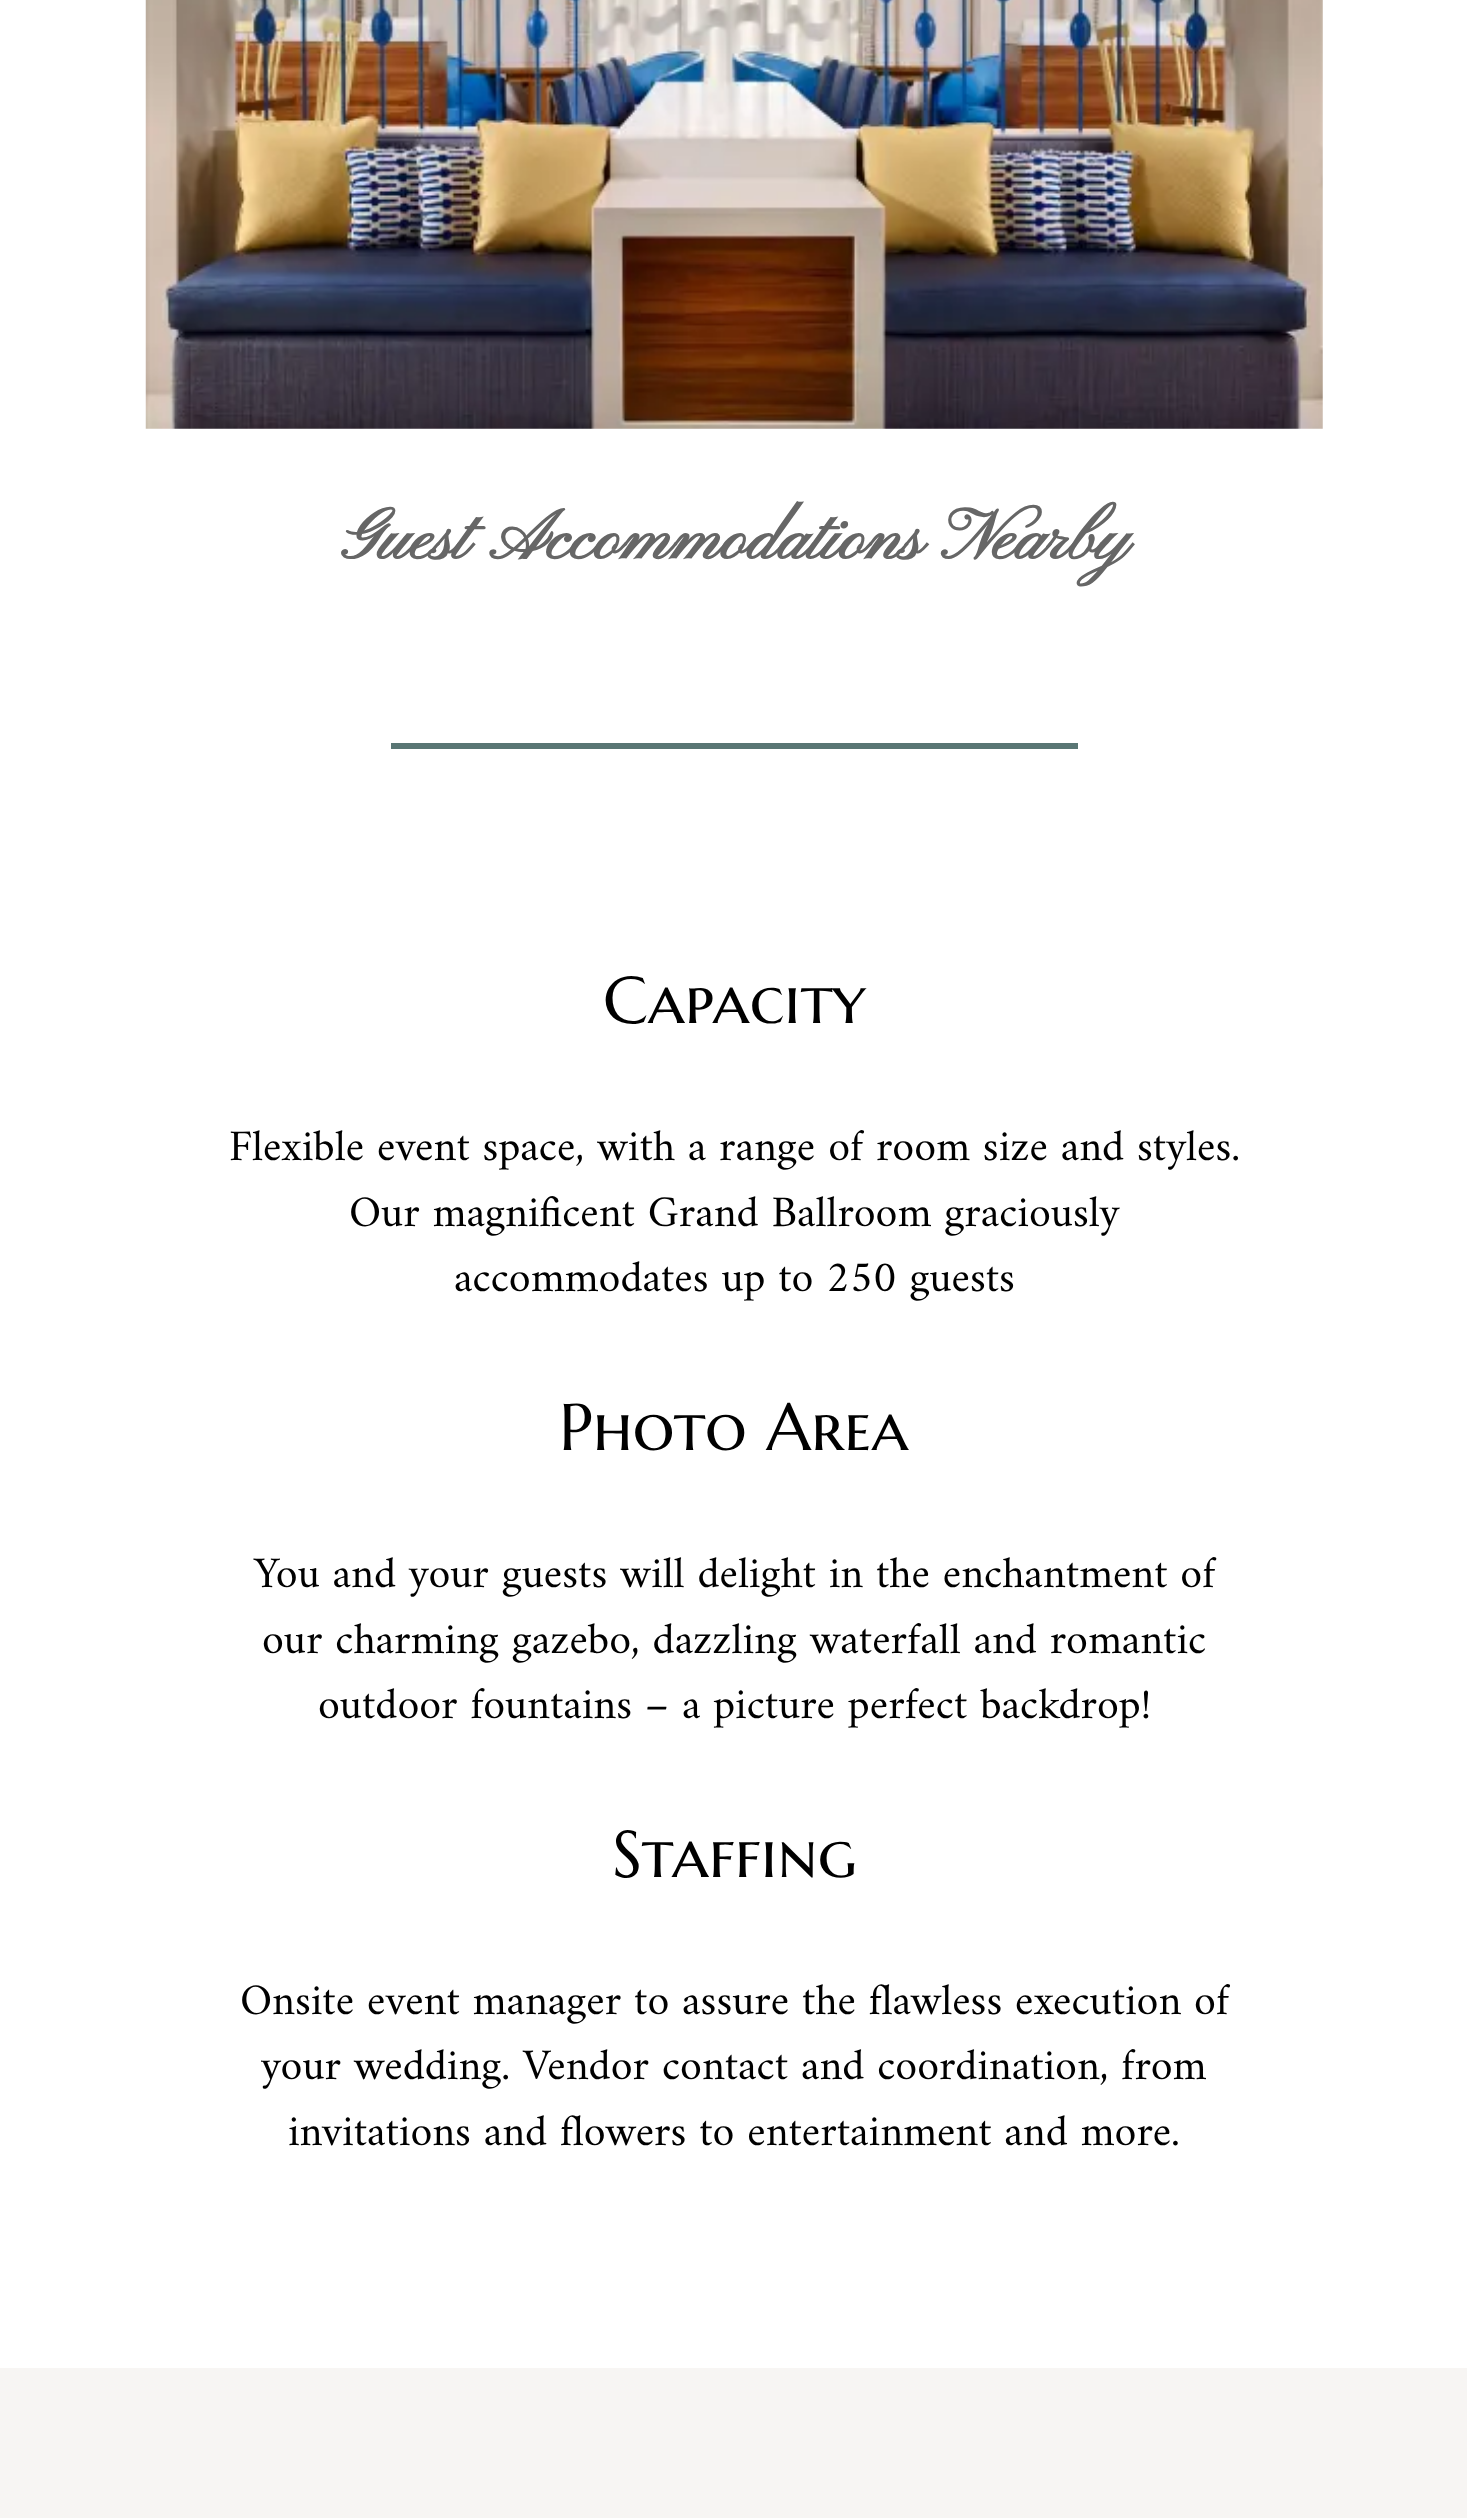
(async () => {
  const canvas = document.querySelector("canvas");
  canvas.width = 1467;
  canvas.height = 2518;
  const ctx = canvas.getContext("2d");
  ctx.miterLimit = 4;
  ctx.fontKerning = "normal";
  async function loadImage(src) {
    const img = new Image();
    img.src = src;
    await img.decode();
    return img;
  }

  ctx.fillStyle = "#ffffff";
  ctx.fillRect(0, 0, 1467, 2518);
  ctx.drawImage(await loadImage("img/1.png"), 145, 0, 1178, 429);
  ctx.fillStyle = "#597674";
  ctx.fillRect(391, 743, 687, 6);
  ctx.fillStyle = "#f7f5f3";
  ctx.fillRect(0, 2368, 1467, 150);
  ctx.font = "bold 71.5px Pinyon Script";
  ctx.fillStyle = "#666666";
  ctx.fillText("Guest Accommodations Nearby", 341, 559);
  ctx.font = "66px Marcellus SC";
  ctx.fillStyle = "#000000";
  ctx.fillText("Capacity", 603, 1023);
  ctx.font = "44px Amiri";
  for (const [text, x, y] of [
    ["Flexible event space, with a range of room size and styles.", 229, 1160],
    ["Our magnificent Grand Ballroom graciously", 349, 1226],
    ["accommodates up to 250 guests", 454, 1291],
  ]) {
    ctx.fillText(text, x, y);
  }
  ctx.font = "66px Marcellus SC";
  ctx.fillText("Photo Area", 559, 1450);
  ctx.font = "44px Amiri";
  for (const [text, x, y] of [
    ["You and your guests will delight in the enchantment of", 254, 1587],
    ["our charming gazebo, dazzling waterfall and romantic", 262, 1653],
    ["outdoor fountains – a picture perfect backdrop!", 318, 1718],
  ]) {
    ctx.fillText(text, x, y);
  }
  ctx.font = "66px Marcellus SC";
  ctx.fillText("Staffing", 612, 1877);
  ctx.font = "44px Amiri";
  for (const [text, x, y] of [
    ["Onsite event manager to assure the flawless execution of", 240, 2014],
    ["your wedding. Vendor contact and coordination, from", 261, 2079],
    ["invitations and flowers to entertainment and more.", 288, 2145],
  ]) {
    ctx.fillText(text, x, y);
  }
})();
